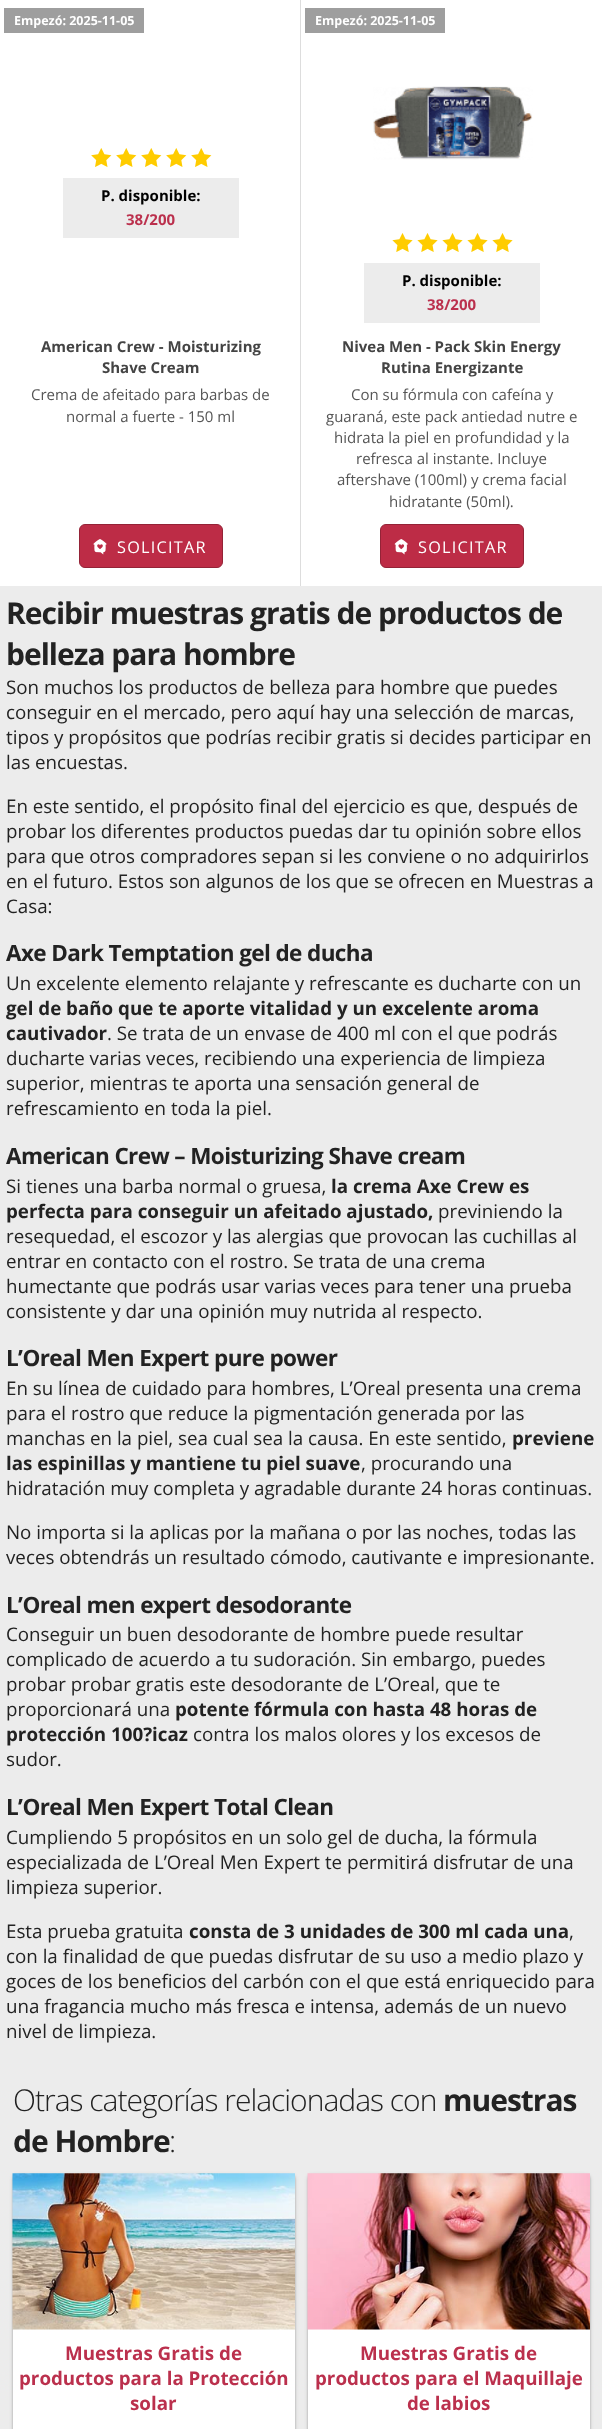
(async () => {
  const canvas = document.querySelector("canvas");
  canvas.width = 602;
  canvas.height = 2429;
  const ctx = canvas.getContext("2d");
  ctx.miterLimit = 4;
  ctx.fontKerning = "normal";
  async function loadImage(src) {
    const img = new Image();
    img.src = src;
    await img.decode();
    return img;
  }

  ctx.fillStyle = "#ffffff";
  ctx.fillRect(0, 0, 602, 2429);
  ctx.fillStyle = "#9e9e9e";
  ctx.fillRect(4, 8, 140, 25);
  ctx.drawImage(await loadImage("img/1.png"), 91, 148, 21, 19);
  ctx.drawImage(await loadImage("img/1.png"), 116, 148, 21, 19);
  ctx.drawImage(await loadImage("img/1.png"), 141, 148, 21, 19);
  ctx.drawImage(await loadImage("img/1.png"), 166, 148, 21, 19);
  ctx.drawImage(await loadImage("img/1.png"), 191, 148, 21, 19);
  ctx.fillStyle = "#ececec";
  ctx.fillRect(63, 178, 176, 60);
  ctx.fillStyle = "#bd2c46";
  ctx.beginPath();
  ctx.roundRect(79.5, 524.5, 143, 43, 5.5);
  ctx.fill();
  ctx.strokeStyle = "#942337";
  ctx.stroke();
  ctx.drawImage(await loadImage("img/2.png"), 93, 539, 14, 16);
  ctx.strokeStyle = "#dddddd";
  ctx.strokeRect(300.5, -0.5, 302, 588);
  ctx.fillStyle = "#9e9e9e";
  ctx.fillRect(305, 8, 140, 25);
  ctx.drawImage(await loadImage("img/3.png"), 373, 86, 160, 74);
  ctx.drawImage(await loadImage("img/4.png"), 392, 233, 21, 19);
  ctx.drawImage(await loadImage("img/4.png"), 417, 233, 21, 19);
  ctx.drawImage(await loadImage("img/4.png"), 442, 233, 21, 19);
  ctx.drawImage(await loadImage("img/4.png"), 467, 233, 21, 19);
  ctx.drawImage(await loadImage("img/4.png"), 492, 233, 21, 19);
  ctx.fillStyle = "#ececec";
  ctx.fillRect(364, 263, 176, 60);
  ctx.fillStyle = "#bd2c46";
  ctx.beginPath();
  ctx.roundRect(380.5, 524.5, 143, 43, 5.5);
  ctx.fill();
  ctx.strokeStyle = "#942337";
  ctx.stroke();
  ctx.drawImage(await loadImage("img/5.png"), 394, 539, 14, 16);
  ctx.fillStyle = "#ececec";
  ctx.fillRect(0, 586, 602, 1843);
  ctx.fillStyle = "rgba(0, 0, 0, 0.24)";
  ctx.filter = "blur(1px)";
  ctx.beginPath();
  ctx.roundRect(13, 2175, 282, 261, 4);
  ctx.fill();
  ctx.filter = "none";
  ctx.fillStyle = "rgba(0, 0, 0, 0.12)";
  ctx.filter = "blur(2px)";
  ctx.beginPath();
  ctx.roundRect(13, 2175, 282, 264, 4);
  ctx.fill();
  ctx.filter = "none";
  ctx.fillStyle = "#ffffff";
  ctx.fillRect(13, 2330, 282, 99);
  ctx.fillStyle = "#fdfdfd";
  ctx.fillRect(13, 2329, 282, 1);
  ctx.drawImage(await loadImage("img/6.png"), 12, 2173, 283, 157);
  ctx.fillStyle = "rgba(0, 0, 0, 0.24)";
  ctx.filter = "blur(1px)";
  ctx.beginPath();
  ctx.roundRect(308, 2175, 282, 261, 4);
  ctx.fill();
  ctx.filter = "none";
  ctx.fillStyle = "rgba(0, 0, 0, 0.12)";
  ctx.filter = "blur(2px)";
  ctx.beginPath();
  ctx.roundRect(308, 2175, 282, 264, 4);
  ctx.fill();
  ctx.filter = "none";
  ctx.fillStyle = "#ffffff";
  ctx.fillRect(308, 2330, 282, 99);
  ctx.fillStyle = "#fdfdfd";
  ctx.fillRect(308, 2329, 282, 1);
  ctx.drawImage(await loadImage("img/7.png"), 307, 2173, 283, 157);
  ctx.font = "bold 12.5px Open Sans";
  ctx.fillStyle = "#ffffff";
  ctx.fillText("Empezó: 2025-11-05", 14, 25);
  ctx.font = "bold 15px Open Sans";
  ctx.fillStyle = "#000000";
  ctx.fillText("P. disponible:", 101, 201);
  ctx.fillStyle = "#bb304d";
  ctx.fillText("38/200", 126, 225);
  ctx.fillStyle = "#444444";
  ctx.fillText("American Crew - Moisturizing", 41, 352);
  ctx.fillText("Shave Cream", 102, 373);
  ctx.font = "15px Open Sans";
  ctx.fillStyle = "#555555";
  ctx.fillText("Crema de afeitado para barbas de", 31, 400);
  ctx.fillText("normal a fuerte - 150 ml", 66, 422);
  ctx.letterSpacing = "1.25px";
  ctx.font = "16.25px Open Sans";
  ctx.fillStyle = "#ffffff";
  ctx.fillText("SOLICITAR", 117, 553);
  ctx.letterSpacing = "0px";
  ctx.font = "bold 12.5px Open Sans";
  ctx.fillText("Empezó: 2025-11-05", 315, 25);
  ctx.font = "bold 15px Open Sans";
  ctx.fillStyle = "#000000";
  ctx.fillText("P. disponible:", 402, 286);
  ctx.fillStyle = "#bb304d";
  ctx.fillText("38/200", 427, 310);
  ctx.fillStyle = "#444444";
  ctx.fillText("Nivea Men - Pack Skin Energy", 342, 352);
  ctx.fillText("Rutina Energizante", 381, 373);
  ctx.font = "15px Open Sans";
  ctx.fillStyle = "#555555";
  for (const [text, x, y] of [
    ["Con su fórmula con cafeína y", 351, 400],
    ["guaraná, este pack antiedad nutre e", 326, 422],
    ["hidrata la piel en profundidad y la", 334, 443],
    ["refresca al instante. Incluye", 356, 464],
    ["aftershave (100ml) y crema facial", 337, 485],
    ["hidratante (50ml).", 389, 507],
  ]) {
    ctx.fillText(text, x, y);
  }
  ctx.letterSpacing = "1.25px";
  ctx.font = "16.25px Open Sans";
  ctx.fillStyle = "#ffffff";
  ctx.fillText("SOLICITAR", 418, 553);
  ctx.letterSpacing = "-1px";
  ctx.font = "bold 30px Open Sans";
  ctx.fillStyle = "#222222";
  ctx.fillText("Recibir muestras gratis de productos de", 6, 624);
  ctx.fillText("belleza para hombre", 6, 665);
  ctx.letterSpacing = "0px";
  ctx.font = "18.75px Open Sans";
  for (const [text, x, y] of [
    ["Son muchos los productos de belleza para hombre que puedes", 6, 694],
    ["conseguir en el mercado, pero aquí hay una selección de marcas,", 6, 719],
    ["tipos y propósitos que podrías recibir gratis si decides participar en", 6, 744],
    ["las encuestas.", 6, 769],
    ["En este sentido, el propósito final del ejercicio es que, después de", 6, 813],
    ["probar los diferentes productos puedas dar tu opinión sobre ellos", 6, 838],
    ["para que otros compradores sepan si les conviene o no adquirirlos", 6, 863],
    ["en el futuro. Estos son algunos de los que se ofrecen en Muestras a", 6, 888],
    ["Casa:", 6, 913],
  ]) {
    ctx.fillText(text, x, y);
  }
  ctx.letterSpacing = "-0.6px";
  ctx.font = "bold 22.5px Open Sans";
  ctx.fillText("Axe Dark Temptation gel de ducha", 6, 961);
  ctx.letterSpacing = "0px";
  ctx.font = "18.75px Open Sans";
  ctx.fillText("Un excelente elemento relajante y refrescante es ducharte con un", 6, 990);
  ctx.font = "bold 18.75px Open Sans";
  ctx.fillText("gel de baño que te aporte vitalidad y un excelente aroma", 6, 1015);
  ctx.fillText("cautivador", 6, 1040);
  ctx.font = "18.75px Open Sans";
  for (const [text, x, y] of [
    [". Se trata de un envase de 400 ml con el que podrás", 107, 1040],
    ["ducharte varias veces, recibiendo una experiencia de limpieza", 6, 1065],
    ["superior, mientras te aporta una sensación general de", 6, 1090],
    ["refrescamiento en toda la piel.", 6, 1115],
  ]) {
    ctx.fillText(text, x, y);
  }
  ctx.letterSpacing = "-0.6px";
  ctx.font = "bold 22.5px Open Sans";
  ctx.fillText("American Crew – Moisturizing Shave cream", 6, 1164);
  ctx.letterSpacing = "0px";
  ctx.font = "18.75px Open Sans";
  ctx.fillText("Si tienes una barba normal o gruesa,", 6, 1193);
  ctx.font = "bold 18.75px Open Sans";
  ctx.fillText("la crema Axe Crew es", 331, 1193);
  ctx.fillText("perfecta para conseguir un afeitado ajustado,", 6, 1218);
  ctx.font = "18.75px Open Sans";
  for (const [text, x, y] of [
    ["previniendo la", 438, 1218],
    ["resequedad, el escozor y las alergias que provocan las cuchillas al", 6, 1243],
    ["entrar en contacto con el rostro. Se trata de una crema", 6, 1268],
    ["humectante que podrás usar varias veces para tener una prueba", 6, 1293],
    ["consistente y dar una opinión muy nutrida al respecto.", 6, 1318],
  ]) {
    ctx.fillText(text, x, y);
  }
  ctx.letterSpacing = "-0.6px";
  ctx.font = "bold 22.5px Open Sans";
  ctx.fillText("L’Oreal Men Expert pure power", 6, 1366);
  ctx.letterSpacing = "0px";
  ctx.font = "18.75px Open Sans";
  for (const [text, x, y] of [
    ["En su línea de cuidado para hombres, L’Oreal presenta una crema", 6, 1395],
    ["para el rostro que reduce la pigmentación generada por las", 6, 1420],
    ["manchas en la piel, sea cual sea la causa. En este sentido,", 6, 1445],
  ]) {
    ctx.fillText(text, x, y);
  }
  ctx.font = "bold 18.75px Open Sans";
  ctx.fillText("previene", 512, 1445);
  ctx.fillText("las espinillas y mantiene tu piel suave", 6, 1470);
  ctx.font = "18.75px Open Sans";
  for (const [text, x, y] of [
    [", procurando una", 361, 1470],
    ["hidratación muy completa y agradable durante 24 horas continuas.", 6, 1495],
    ["No importa si la aplicas por la mañana o por las noches, todas las", 6, 1539],
    ["veces obtendrás un resultado cómodo, cautivante e impresionante.", 6, 1564],
  ]) {
    ctx.fillText(text, x, y);
  }
  ctx.letterSpacing = "-0.6px";
  ctx.font = "bold 22.5px Open Sans";
  ctx.fillText("L’Oreal men expert desodorante", 6, 1613);
  ctx.letterSpacing = "0px";
  ctx.font = "18.75px Open Sans";
  for (const [text, x, y] of [
    ["Conseguir un buen desodorante de hombre puede resultar", 6, 1641],
    ["complicado de acuerdo a tu sudoración. Sin embargo, puedes", 6, 1666],
    ["probar probar gratis este desodorante de L’Oreal, que te", 6, 1691],
    ["proporcionará una", 6, 1716],
  ]) {
    ctx.fillText(text, x, y);
  }
  ctx.font = "bold 18.75px Open Sans";
  ctx.fillText("potente fórmula con hasta 48 horas de", 175, 1716);
  ctx.fillText("protección 100?icaz", 6, 1741);
  ctx.font = "18.75px Open Sans";
  ctx.fillText("contra los malos olores y los excesos de", 193, 1741);
  ctx.fillText("sudor.", 6, 1766);
  ctx.letterSpacing = "-0.6px";
  ctx.font = "bold 22.5px Open Sans";
  ctx.fillText("L’Oreal Men Expert Total Clean", 6, 1815);
  ctx.letterSpacing = "0px";
  ctx.font = "18.75px Open Sans";
  for (const [text, x, y] of [
    ["Cumpliendo 5 propósitos en un solo gel de ducha, la fórmula", 6, 1844],
    ["especializada de L’Oreal Men Expert te permitirá disfrutar de una", 6, 1869],
    ["limpieza superior.", 6, 1894],
    ["Esta prueba gratuita", 6, 1938],
  ]) {
    ctx.fillText(text, x, y);
  }
  ctx.font = "bold 18.75px Open Sans";
  ctx.fillText("consta de 3 unidades de 300 ml cada una", 189, 1938);
  ctx.font = "18.75px Open Sans";
  for (const [text, x, y] of [
    [",", 569, 1938],
    ["con la finalidad de que puedas disfrutar de su uso a medio plazo y", 6, 1963],
    ["goces de los beneficios del carbón con el que está enriquecido para", 6, 1988],
    ["una fragancia mucho más fresca e intensa, además de un nuevo", 6, 2013],
    ["nivel de limpieza.", 6, 2038],
  ]) {
    ctx.fillText(text, x, y);
  }
  ctx.letterSpacing = "-1px";
  ctx.font = "300 30px Open Sans";
  ctx.fillText("Otras categorías relacionadas con", 13, 2111);
  ctx.font = "bold 30px Open Sans";
  ctx.fillText("muestras", 443, 2111);
  ctx.fillText("de Hombre", 13, 2152);
  ctx.font = "300 30px Open Sans";
  ctx.fillText(":", 169, 2152);
  ctx.letterSpacing = "0px";
  ctx.font = "bold 18.75px Open Sans";
  ctx.fillStyle = "#bb304d";
  for (const [text, x, y] of [
    ["Muestras Gratis de", 65, 2360],
    ["productos para la Protección", 19, 2385],
    ["solar", 130, 2410],
    ["Muestras Gratis de", 360, 2360],
    ["productos para el Maquillaje", 315, 2385],
    ["de labios", 407, 2410],
  ]) {
    ctx.fillText(text, x, y);
  }
})();
